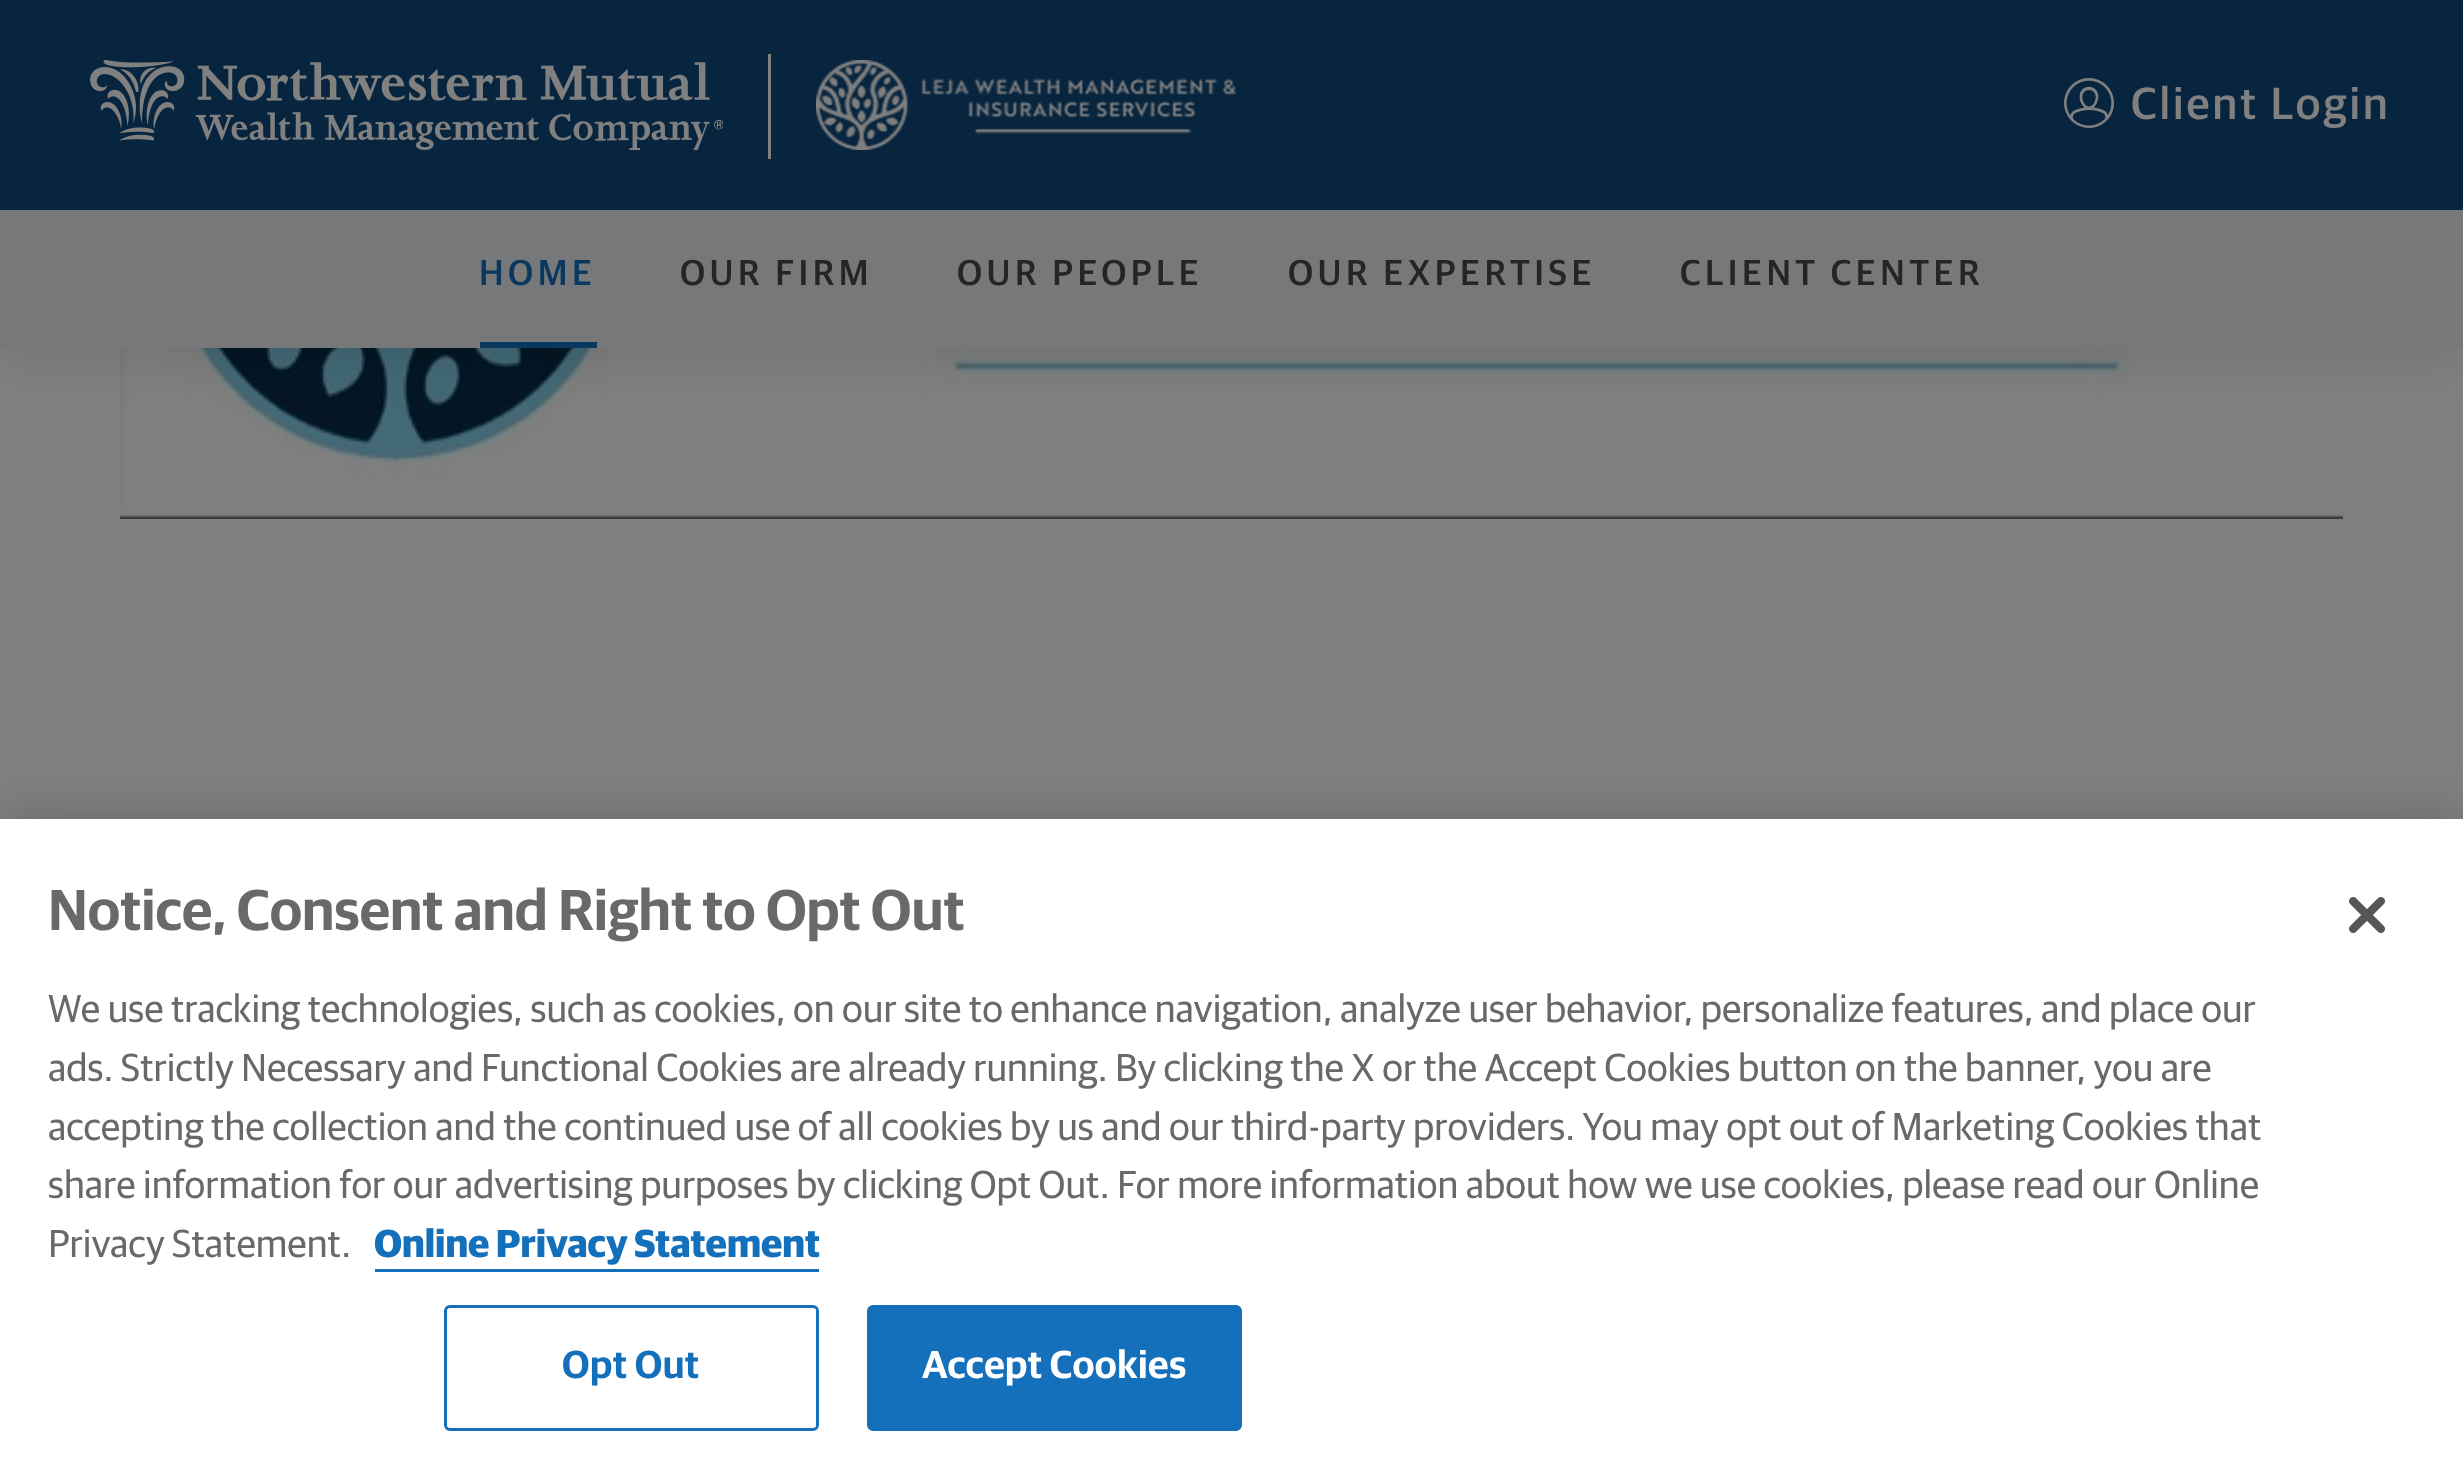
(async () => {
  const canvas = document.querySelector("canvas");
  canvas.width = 2463;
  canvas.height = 1477;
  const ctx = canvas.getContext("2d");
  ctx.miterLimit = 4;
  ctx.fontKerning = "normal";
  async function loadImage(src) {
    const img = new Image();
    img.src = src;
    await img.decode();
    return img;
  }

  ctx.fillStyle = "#808080";
  ctx.fillRect(0, 0, 2463, 1477);
  ctx.drawImage(await loadImage("img/4.png"), 120, 348, 2223, 171);
  ctx.fillStyle = "rgba(0, 0, 0, 0.1)";
  ctx.filter = "blur(24px)";
  ctx.beginPath();
  ctx.rect(0, 222, 2463, 138);
  ctx.fill();
  ctx.filter = "none";
  ctx.fillStyle = "#07253e";
  ctx.fillRect(0, 0, 2463, 210);
  ctx.drawImage(await loadImage("img/1.png"), 90, 60, 633, 90);
  ctx.fillStyle = "#808080";
  ctx.fillRect(768, 54, 3, 105);
  ctx.drawImage(await loadImage("img/2.png"), 816, 60, 420, 90);
  ctx.drawImage(await loadImage("img/3.png"), 2064, 78, 50, 50);
  ctx.fillStyle = "#77787a";
  ctx.fillRect(0, 210, 2463, 138);
  ctx.fillStyle = "#0b385e";
  ctx.fillRect(480, 342, 117, 6);
  ctx.fillStyle = "rgba(0, 0, 0, 0.2)";
  ctx.filter = "blur(27px)";
  ctx.beginPath();
  ctx.rect(0, 819, 2463, 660);
  ctx.fill();
  ctx.filter = "none";
  ctx.fillStyle = "#ffffff";
  ctx.fillRect(0, 819, 2463, 658);
  ctx.fillStyle = "#1570bc";
  ctx.fillRect(375, 1269, 444, 3);
  ctx.beginPath();
  ctx.roundRect(445.5, 1306.5, 372, 123, 4.5);
  ctx.strokeStyle = "#1570bc";
  ctx.lineWidth = 3;
  ctx.stroke();
  ctx.beginPath();
  ctx.roundRect(868.5, 1306.5, 372, 123, 4.5);
  ctx.fill();
  ctx.stroke();
  ctx.drawImage(await loadImage("img/5.png"), 2349, 897, 36, 36);
  ctx.letterSpacing = "3px";
  ctx.font = "500 45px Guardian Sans";
  ctx.fillStyle = "#808080";
  ctx.fillText("Client Login", 2131, 119);
  ctx.letterSpacing = "4.5px";
  ctx.font = "500 36px Guardian Sans";
  ctx.fillStyle = "#0b385e";
  ctx.fillText("HOME", 479, 285);
  ctx.fillStyle = "#252525";
  for (const [text, x, y] of [
    ["OUR FIRM", 680, 285],
    ["OUR PEOPLE", 957, 285],
    ["OUR EXPERTISE", 1288, 285],
    ["CLIENT CENTER", 1680, 285],
  ]) {
    ctx.fillText(text, x, y);
  }
  ctx.letterSpacing = "0px";
  ctx.font = "600 57.6px Guardian Sans";
  ctx.fillStyle = "#696969";
  ctx.fillText("Notice, Consent and Right to Opt Out", 48, 930);
  ctx.font = "39.02px Guardian Sans";
  for (const [text, x, y] of [
    ["We use tracking technologies, such as cookies, on our site to enhance navigation, analyze user behavior, personalize features, and place our", 48, 1022],
    ["ads. Strictly Necessary and Functional Cookies are already running. By clicking the X or the Accept Cookies button on the banner, you are", 48, 1081],
    ["accepting the collection and the continued use of all cookies by us and our third-party providers. You may opt out of Marketing Cookies that", 48, 1140],
    ["share information for our advertising purposes by clicking Opt Out. For more information about how we use cookies, please read our Online", 48, 1198],
    ["Privacy Statement.", 48, 1257],
  ]) {
    ctx.fillText(text, x, y);
  }
  ctx.font = "bold 39.02px Guardian Sans";
  ctx.fillStyle = "#1570bc";
  ctx.fillText("Online Privacy Statement", 374, 1257);
  ctx.letterSpacing = "0.4px";
  ctx.font = "600 39.02px Guardian Sans";
  ctx.fillText("Opt Out", 562, 1378);
  ctx.fillStyle = "#ffffff";
  ctx.fillText("Accept Cookies", 922, 1378);
})();
